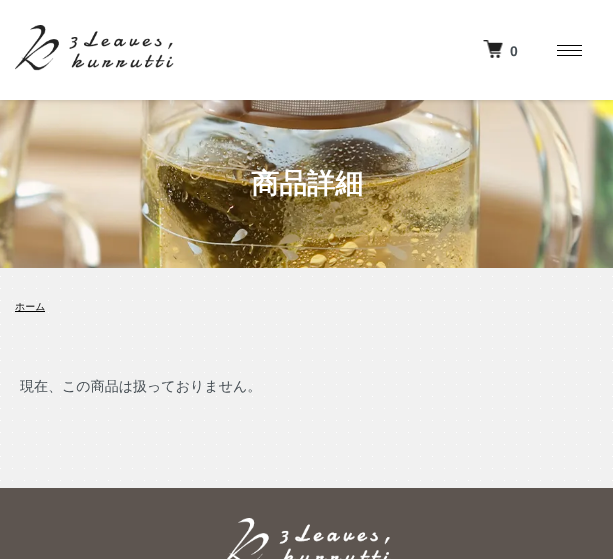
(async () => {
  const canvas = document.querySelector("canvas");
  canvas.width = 613;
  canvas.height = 559;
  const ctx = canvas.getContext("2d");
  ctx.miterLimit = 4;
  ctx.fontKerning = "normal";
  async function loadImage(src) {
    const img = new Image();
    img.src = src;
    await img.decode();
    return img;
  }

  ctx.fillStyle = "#f1f1f1";
  ctx.fillRect(0, 0, 613, 559);
  ctx.drawImage(await loadImage("img/1.png"), 0, 276, 613, 205);
  ctx.drawImage(await loadImage("img/4.png"), 0, 100, 613, 168);
  ctx.fillStyle = "rgba(0, 0, 0, 0.2)";
  ctx.filter = "blur(2.5px)";
  ctx.beginPath();
  ctx.rect(0, 0, 613, 100);
  ctx.fill();
  ctx.filter = "none";
  ctx.fillStyle = "#ffffff";
  ctx.fillRect(0, 0, 613, 100);
  ctx.drawImage(await loadImage("img/2.png"), 15, 25, 159, 46);
  ctx.drawImage(await loadImage("img/3.png"), 483, 40, 20, 18);
  for (const [x, y, w, h, color] of [
    [557, 45, 25, 1, "#000000"],
    [557, 50, 25, 1, "#000000"],
    [557, 55, 25, 1, "#000000"],
    [15, 311, 30, 1, "#000000"],
    [0, 488, 613, 71, "#5d5550"],
  ]) {
    ctx.fillStyle = color;
    ctx.fillRect(x, y, w, h);
  }
  ctx.drawImage(await loadImage("img/5.png"), 227, 518, 164, 41);
  ctx.font = "bold 14px Liberation Sans";
  ctx.fillStyle = "#464e54";
  ctx.fillText("0", 510, 56);
  ctx.font = "bold 28px WenQuanYi Zen Hei";
  ctx.fillStyle = "#ffffff";
  ctx.fillText("商品詳細", 251, 193);
  ctx.font = "500 10px WenQuanYi Zen Hei";
  ctx.fillStyle = "#000000";
  ctx.fillText("ホーム", 15, 310);
  ctx.font = "500 14px WenQuanYi Zen Hei";
  ctx.fillStyle = "#464e54";
  ctx.fillText("現在、この商品は扱っておりません。", 20, 391);
})();
